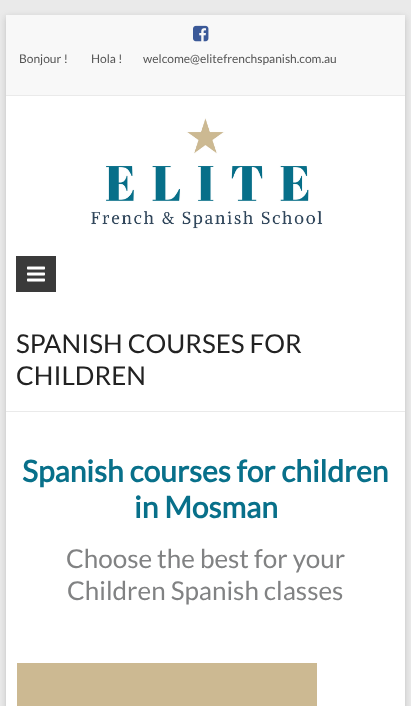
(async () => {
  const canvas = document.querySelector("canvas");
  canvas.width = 411;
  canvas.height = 706;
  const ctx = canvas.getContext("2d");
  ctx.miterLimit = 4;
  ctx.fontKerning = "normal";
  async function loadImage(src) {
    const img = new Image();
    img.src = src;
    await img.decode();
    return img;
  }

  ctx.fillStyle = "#eaeaea";
  ctx.fillRect(0, 0, 411, 706);
  ctx.fillStyle = "rgba(100, 100, 100, 0.3)";
  ctx.filter = "blur(3px)";
  ctx.beginPath();
  ctx.rect(6, 17, 399, 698);
  ctx.fill();
  ctx.filter = "none";
  for (const [x, y, w, h, color] of [
    [6, 96, 399, 610, "#ffffff"],
    [6, 15, 399, 80, "#f8f8f8"],
    [6, 95, 399, 1, "#eaeaea"],
  ]) {
    ctx.fillStyle = color;
    ctx.fillRect(x, y, w, h);
  }
  ctx.drawImage(await loadImage("img/1.png"), 193, 25, 16, 17);
  ctx.drawImage(await loadImage("img/2.png"), 91, 118, 232, 111);
  ctx.fillStyle = "#3a3a3a";
  ctx.fillRect(16, 256, 40, 36);
  ctx.drawImage(await loadImage("img/3.png"), 27, 266, 18, 16);
  ctx.fillStyle = "#eaeaea";
  ctx.fillRect(6, 411, 399, 1);
  ctx.fillStyle = "#ccb992";
  ctx.fillRect(17, 663, 300, 43);
  ctx.font = "12px Lato";
  ctx.fillStyle = "#555555";
  ctx.fillText("Bonjour !          Hola !         welcome@elitefrenchspanish.com.au", 19, 63);
  ctx.font = "26px Lato";
  ctx.fillStyle = "#222222";
  ctx.fillText("SPANISH COURSES FOR", 16, 353);
  ctx.fillText("CHILDREN", 16, 385);
  ctx.font = "bold 30px Lato";
  ctx.fillStyle = "#08708a";
  ctx.fillText("Spanish courses for children", 22, 482);
  ctx.fillText("in Mosman", 134, 518);
  ctx.font = "26px Lato";
  ctx.fillStyle = "#818283";
  ctx.fillText("Choose the best for your", 66, 568);
  ctx.fillText("Children Spanish classes", 67, 600);
})();
